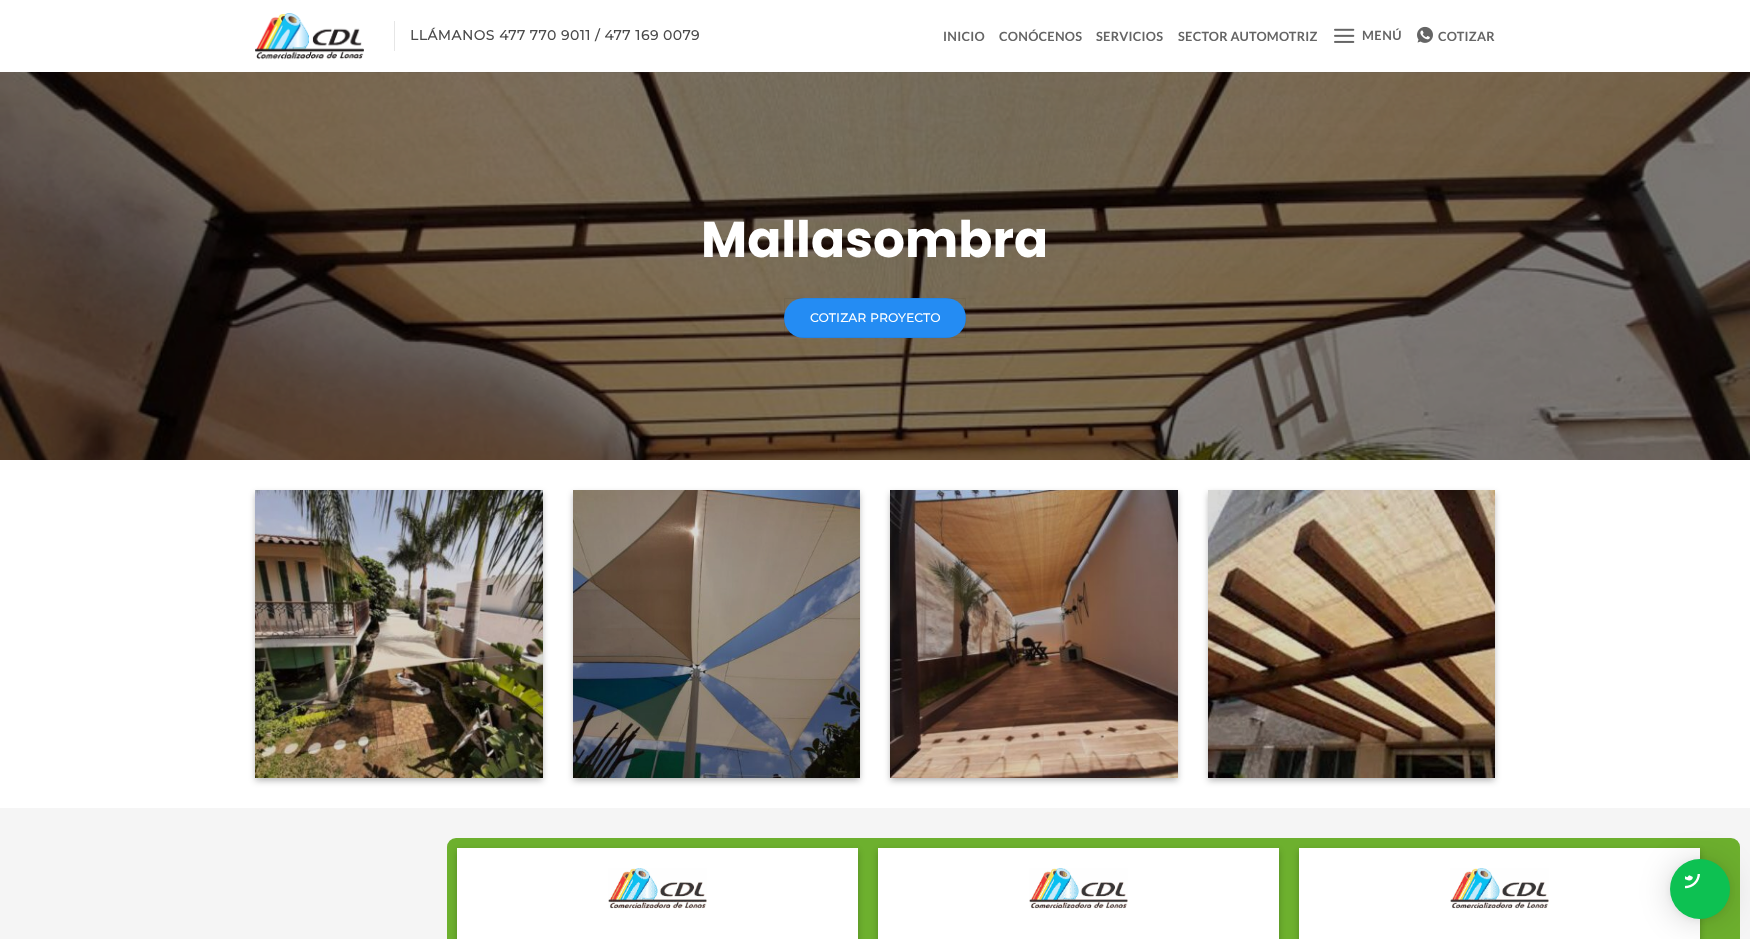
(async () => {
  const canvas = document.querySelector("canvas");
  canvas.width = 1750;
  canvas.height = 939;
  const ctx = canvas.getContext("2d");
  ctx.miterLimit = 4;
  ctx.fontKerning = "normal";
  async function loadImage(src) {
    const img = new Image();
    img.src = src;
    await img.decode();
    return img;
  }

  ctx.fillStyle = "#ffffff";
  ctx.fillRect(0, 0, 1750, 939);
  ctx.drawImage(await loadImage("img/1.png"), 255, 13, 109, 47);
  ctx.fillStyle = "#e6e6e6";
  ctx.fillRect(394, 21, 1, 30);
  ctx.drawImage(await loadImage("img/2.png"), 1334, 28, 21, 15);
  ctx.drawImage(await loadImage("img/3.png"), 1417, 26, 16, 17);
  ctx.drawImage(await loadImage("img/4.png"), 0, 72, 1750, 388);
  ctx.fillStyle = "rgba(74, 74, 74, 0.1)";
  ctx.fillRect(255, 72, 1240, 1);
  ctx.fillStyle = "#248cf3";
  ctx.beginPath();
  ctx.roundRect(784, 298, 182, 40, 20);
  ctx.fill();
  ctx.strokeStyle = "rgba(0, 0, 0, 0.05)";
  ctx.strokeRect(784.5, 298.5, 181, 39);
  ctx.fillStyle = "rgba(0, 0, 0, 0.23)";
  ctx.filter = "blur(3px)";
  ctx.beginPath();
  ctx.rect(255, 493, 288, 288);
  ctx.fill();
  ctx.filter = "none";
  ctx.fillStyle = "rgba(0, 0, 0, 0.16)";
  ctx.filter = "blur(3px)";
  ctx.beginPath();
  ctx.rect(259, 497, 280, 280);
  ctx.fill();
  ctx.filter = "none";
  ctx.drawImage(await loadImage("img/5.png"), 255, 490, 288, 288);
  ctx.fillStyle = "rgba(0, 0, 0, 0.23)";
  ctx.filter = "blur(3px)";
  ctx.beginPath();
  ctx.rect(573, 493, 287, 288);
  ctx.fill();
  ctx.filter = "none";
  ctx.fillStyle = "rgba(0, 0, 0, 0.16)";
  ctx.filter = "blur(3px)";
  ctx.beginPath();
  ctx.rect(577, 497, 279, 280);
  ctx.fill();
  ctx.filter = "none";
  ctx.drawImage(await loadImage("img/6.png"), 573, 490, 287, 288);
  ctx.fillStyle = "rgba(0, 0, 0, 0.23)";
  ctx.filter = "blur(3px)";
  ctx.beginPath();
  ctx.rect(890, 493, 288, 288);
  ctx.fill();
  ctx.filter = "none";
  ctx.fillStyle = "rgba(0, 0, 0, 0.16)";
  ctx.filter = "blur(3px)";
  ctx.beginPath();
  ctx.rect(894, 497, 280, 280);
  ctx.fill();
  ctx.filter = "none";
  ctx.drawImage(await loadImage("img/7.png"), 890, 490, 288, 288);
  ctx.fillStyle = "rgba(0, 0, 0, 0.23)";
  ctx.filter = "blur(3px)";
  ctx.beginPath();
  ctx.rect(1208, 493, 287, 288);
  ctx.fill();
  ctx.filter = "none";
  ctx.fillStyle = "rgba(0, 0, 0, 0.16)";
  ctx.filter = "blur(3px)";
  ctx.beginPath();
  ctx.rect(1212, 497, 279, 280);
  ctx.fill();
  ctx.filter = "none";
  ctx.drawImage(await loadImage("img/8.png"), 1208, 490, 287, 288);
  ctx.fillStyle = "#f5f5f5";
  ctx.fillRect(0, 808, 1750, 131);
  ctx.fillStyle = "#6db02e";
  ctx.beginPath();
  ctx.roundRect(447, 838, 1293, 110, 9);
  ctx.fill();
  ctx.fillStyle = "rgba(0, 0, 0, 0.23)";
  ctx.filter = "blur(3px)";
  ctx.beginPath();
  ctx.rect(457, 851, 401, 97);
  ctx.fill();
  ctx.filter = "none";
  ctx.fillStyle = "#ffffff";
  ctx.fillRect(457, 848, 401, 91);
  ctx.drawImage(await loadImage("img/9.png"), 608, 868, 99, 41);
  ctx.fillStyle = "rgba(0, 0, 0, 0.23)";
  ctx.filter = "blur(3px)";
  ctx.beginPath();
  ctx.rect(878, 851, 401, 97);
  ctx.fill();
  ctx.filter = "none";
  ctx.fillStyle = "#ffffff";
  ctx.fillRect(878, 848, 401, 91);
  ctx.drawImage(await loadImage("img/10.png"), 1029, 868, 99, 41);
  ctx.fillStyle = "rgba(0, 0, 0, 0.23)";
  ctx.filter = "blur(3px)";
  ctx.beginPath();
  ctx.rect(1299, 851, 401, 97);
  ctx.fill();
  ctx.filter = "none";
  ctx.fillStyle = "#ffffff";
  ctx.fillRect(1299, 848, 401, 91);
  ctx.drawImage(await loadImage("img/11.png"), 1450, 868, 99, 41);
  ctx.fillStyle = "rgba(0, 0, 0, 0.16)";
  ctx.filter = "blur(16px)";
  ctx.beginPath();
  ctx.roundRect(1670, 861, 60, 60, 30);
  ctx.fill();
  ctx.filter = "none";
  ctx.fillStyle = "rgba(0, 0, 0, 0.06)";
  ctx.filter = "blur(3px)";
  ctx.beginPath();
  ctx.roundRect(1670, 860, 60, 60, 30);
  ctx.fill();
  ctx.filter = "none";
  ctx.fillStyle = "#0dc152";
  ctx.beginPath();
  ctx.arc(1700, 889, 30, 0, Math.PI * 2);
  ctx.fill();
  ctx.drawImage(await loadImage("img/12.png"), 1685, 874, 15, 15);
  ctx.letterSpacing = "0.7px";
  ctx.font = "bold 13.6px Montserrat";
  ctx.fillStyle = "#4a4a4a";
  ctx.fillText("LLÁMANOS 477 770 9011 / 477 169 0079", 410, 40);
  ctx.letterSpacing = "0.25px";
  ctx.font = "bold 12.75px Lato";
  ctx.fillStyle = "#656565";
  for (const [text, x, y] of [
    ["INICIO", 943, 41],
    ["CONÓCENOS", 999, 41],
    ["SERVICIOS", 1096, 41],
    ["SECTOR AUTOMOTRIZ", 1178, 41],
  ]) {
    ctx.fillText(text, x, y);
  }
  ctx.letterSpacing = "0.5px";
  ctx.fillText("MENÚ", 1362, 40);
  ctx.letterSpacing = "0.25px";
  ctx.fillText("COTIZAR", 1438, 41);
  ctx.letterSpacing = "0px";
  ctx.font = "bold 50.25px Poppins";
  ctx.fillStyle = "#ffffff";
  ctx.fillText("Mallasombra", 701, 257);
  ctx.letterSpacing = "0.4px";
  ctx.font = "bold 12px Montserrat";
  ctx.fillText("COTIZAR PROYECTO", 810, 322);
})();
